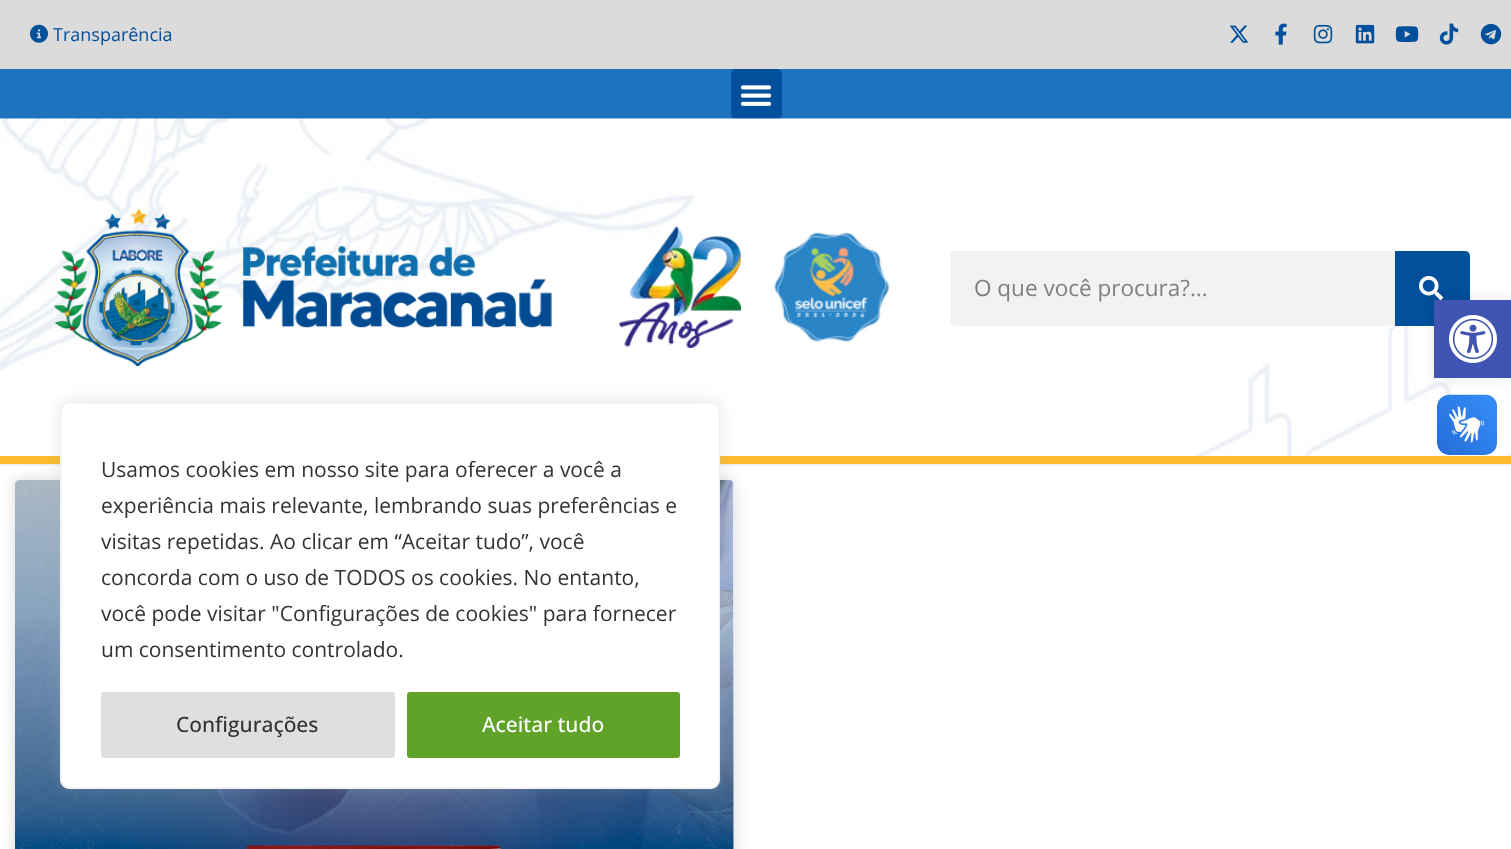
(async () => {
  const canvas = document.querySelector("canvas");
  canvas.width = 1511;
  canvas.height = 849;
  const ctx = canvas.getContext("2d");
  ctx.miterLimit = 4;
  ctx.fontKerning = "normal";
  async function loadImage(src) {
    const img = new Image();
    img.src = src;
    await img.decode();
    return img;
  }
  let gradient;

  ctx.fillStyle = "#ffffff";
  ctx.fillRect(0, 0, 1511, 849);
  ctx.fillStyle = "rgba(0, 0, 0, 0.15)";
  ctx.filter = "blur(7.5px)";
  ctx.beginPath();
  ctx.roundRect(15, 480, 719, 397, 5);
  ctx.fill();
  ctx.filter = "none";
  ctx.fillStyle = "#f1f1f1";
  ctx.fillRect(0, 464, 1511, 2);
  ctx.fillStyle = "#dbdbdb";
  ctx.fillRect(0, 0, 1511, 69);
  ctx.drawImage(await loadImage("img/1.png"), 30, 24, 18, 19);
  ctx.drawImage(await loadImage("img/2.png"), 1229, 25, 20, 18);
  ctx.drawImage(await loadImage("img/3.png"), 1275, 23, 12, 22);
  ctx.drawImage(await loadImage("img/4.png"), 1313, 24, 20, 20);
  ctx.drawImage(await loadImage("img/5.png"), 1355, 24, 20, 20);
  ctx.drawImage(await loadImage("img/6.png"), 1395, 26, 24, 16);
  ctx.drawImage(await loadImage("img/7.png"), 1439, 23, 20, 22);
  ctx.drawImage(await loadImage("img/8.png"), 1480, 24, 22, 21);
  ctx.fillStyle = "#1e73be";
  ctx.fillRect(0, 69, 1511, 50);
  ctx.fillStyle = "#024f9c";
  ctx.beginPath();
  ctx.roundRect(731, 69, 51, 50, 5);
  ctx.fill();
  ctx.drawImage(await loadImage("img/9.png"), 740, 85, 32, 21);
  ctx.fillStyle = "#fdbb2d";
  ctx.fillRect(0, 456, 1511, 8);
  ctx.drawImage(await loadImage("img/10.png"), 0, 118, 1511, 338);
  ctx.drawImage(await loadImage("img/11.png"), 53, 208, 499, 158);
  ctx.drawImage(await loadImage("img/12.png"), 619, 226, 122, 122);
  ctx.drawImage(await loadImage("img/13.png"), 774, 232, 116, 110);
  ctx.fillStyle = "#f1f2f3";
  ctx.beginPath();
  ctx.roundRect(950, 251, 520, 75, 5);
  ctx.fill();
  ctx.fillStyle = "#024f9c";
  ctx.beginPath();
  ctx.roundRect(1395, 251, 75, 75, [0, 5, 5, 0]);
  ctx.fill();
  ctx.drawImage(await loadImage("img/14.png"), 1419, 276, 24, 24);
  ctx.fillStyle = "#ffffff";
  ctx.beginPath();
  ctx.roundRect(15, 480, 719, 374, 5);
  ctx.fill();
  ctx.drawImage(await loadImage("img/15.png"), 15, 480, 719, 369);
  gradient = ctx.createLinearGradient(374, 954, 374, 480);
  gradient.addColorStop(0, "rgba(0, 0, 0, 0.35)");
  gradient.addColorStop(0.75, "rgba(0, 0, 0, 0)");
  ctx.fillStyle = gradient;
  ctx.fillRect(15, 620, 719, 229);
  ctx.fillStyle = "rgba(0, 0, 0, 0.1)";
  ctx.filter = "blur(7.5px)";
  ctx.beginPath();
  ctx.rect(1434, 300, 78, 78);
  ctx.fill();
  ctx.filter = "none";
  ctx.fillStyle = "#4054b2";
  ctx.fillRect(1434, 300, 77, 78);
  ctx.drawImage(await loadImage("img/16.png"), 1449, 315, 48, 48);
  ctx.drawImage(await loadImage("img/17.png"), 1437, 394, 60, 61);
  ctx.drawImage(await loadImage("img/18.png"), 1437, 395, 60, 60);
  ctx.fillStyle = "rgba(172, 171, 171, 0.3)";
  ctx.filter = "blur(7.5px)";
  ctx.beginPath();
  ctx.roundRect(60, 401, 660, 387, 9);
  ctx.fill();
  ctx.filter = "none";
  ctx.fillStyle = "#ffffff";
  ctx.beginPath();
  ctx.roundRect(61, 403, 658, 385, 8);
  ctx.fill();
  ctx.strokeStyle = "#f4f4f4";
  ctx.lineWidth = 2;
  ctx.stroke();
  ctx.fillStyle = "#dedfe0";
  ctx.beginPath();
  ctx.roundRect(102.5, 693.5, 291, 63, 1.5);
  ctx.fill();
  ctx.strokeStyle = "#dedfe0";
  ctx.lineWidth = 3;
  ctx.stroke();
  ctx.fillStyle = "#61a229";
  ctx.beginPath();
  ctx.roundRect(408.5, 693.5, 270, 63, 1.5);
  ctx.fill();
  ctx.strokeStyle = "#61a229";
  ctx.stroke();
  ctx.font = "18px Open Sans";
  ctx.fillStyle = "#024f9c";
  ctx.fillText("Transparência", 53, 41);
  ctx.font = "22.5px Open Sans";
  ctx.fillStyle = "#7f7f80";
  ctx.fillText("O que você procura?...", 974, 296);
  ctx.font = "21px Open Sans";
  ctx.fillStyle = "#333333";
  for (const [text, x, y] of [
    ["Usamos cookies em nosso site para oferecer a você a", 101, 477],
    ["experiência mais relevante, lembrando suas preferências e", 101, 513],
    ["visitas repetidas. Ao clicar em “Aceitar tudo”, você", 101, 549],
    ["concorda com o uso de TODOS os cookies. No entanto,", 101, 585],
    ["você pode visitar \"Configurações de cookies\" para fornecer", 101, 621],
    ["um consentimento controlado.", 101, 657],
  ]) {
    ctx.fillText(text, x, y);
  }
  ctx.font = "500 21px Open Sans";
  ctx.fillText("Configurações", 176, 732);
  ctx.fillStyle = "#ffffff";
  ctx.fillText("Aceitar tudo", 482, 732);
})();
